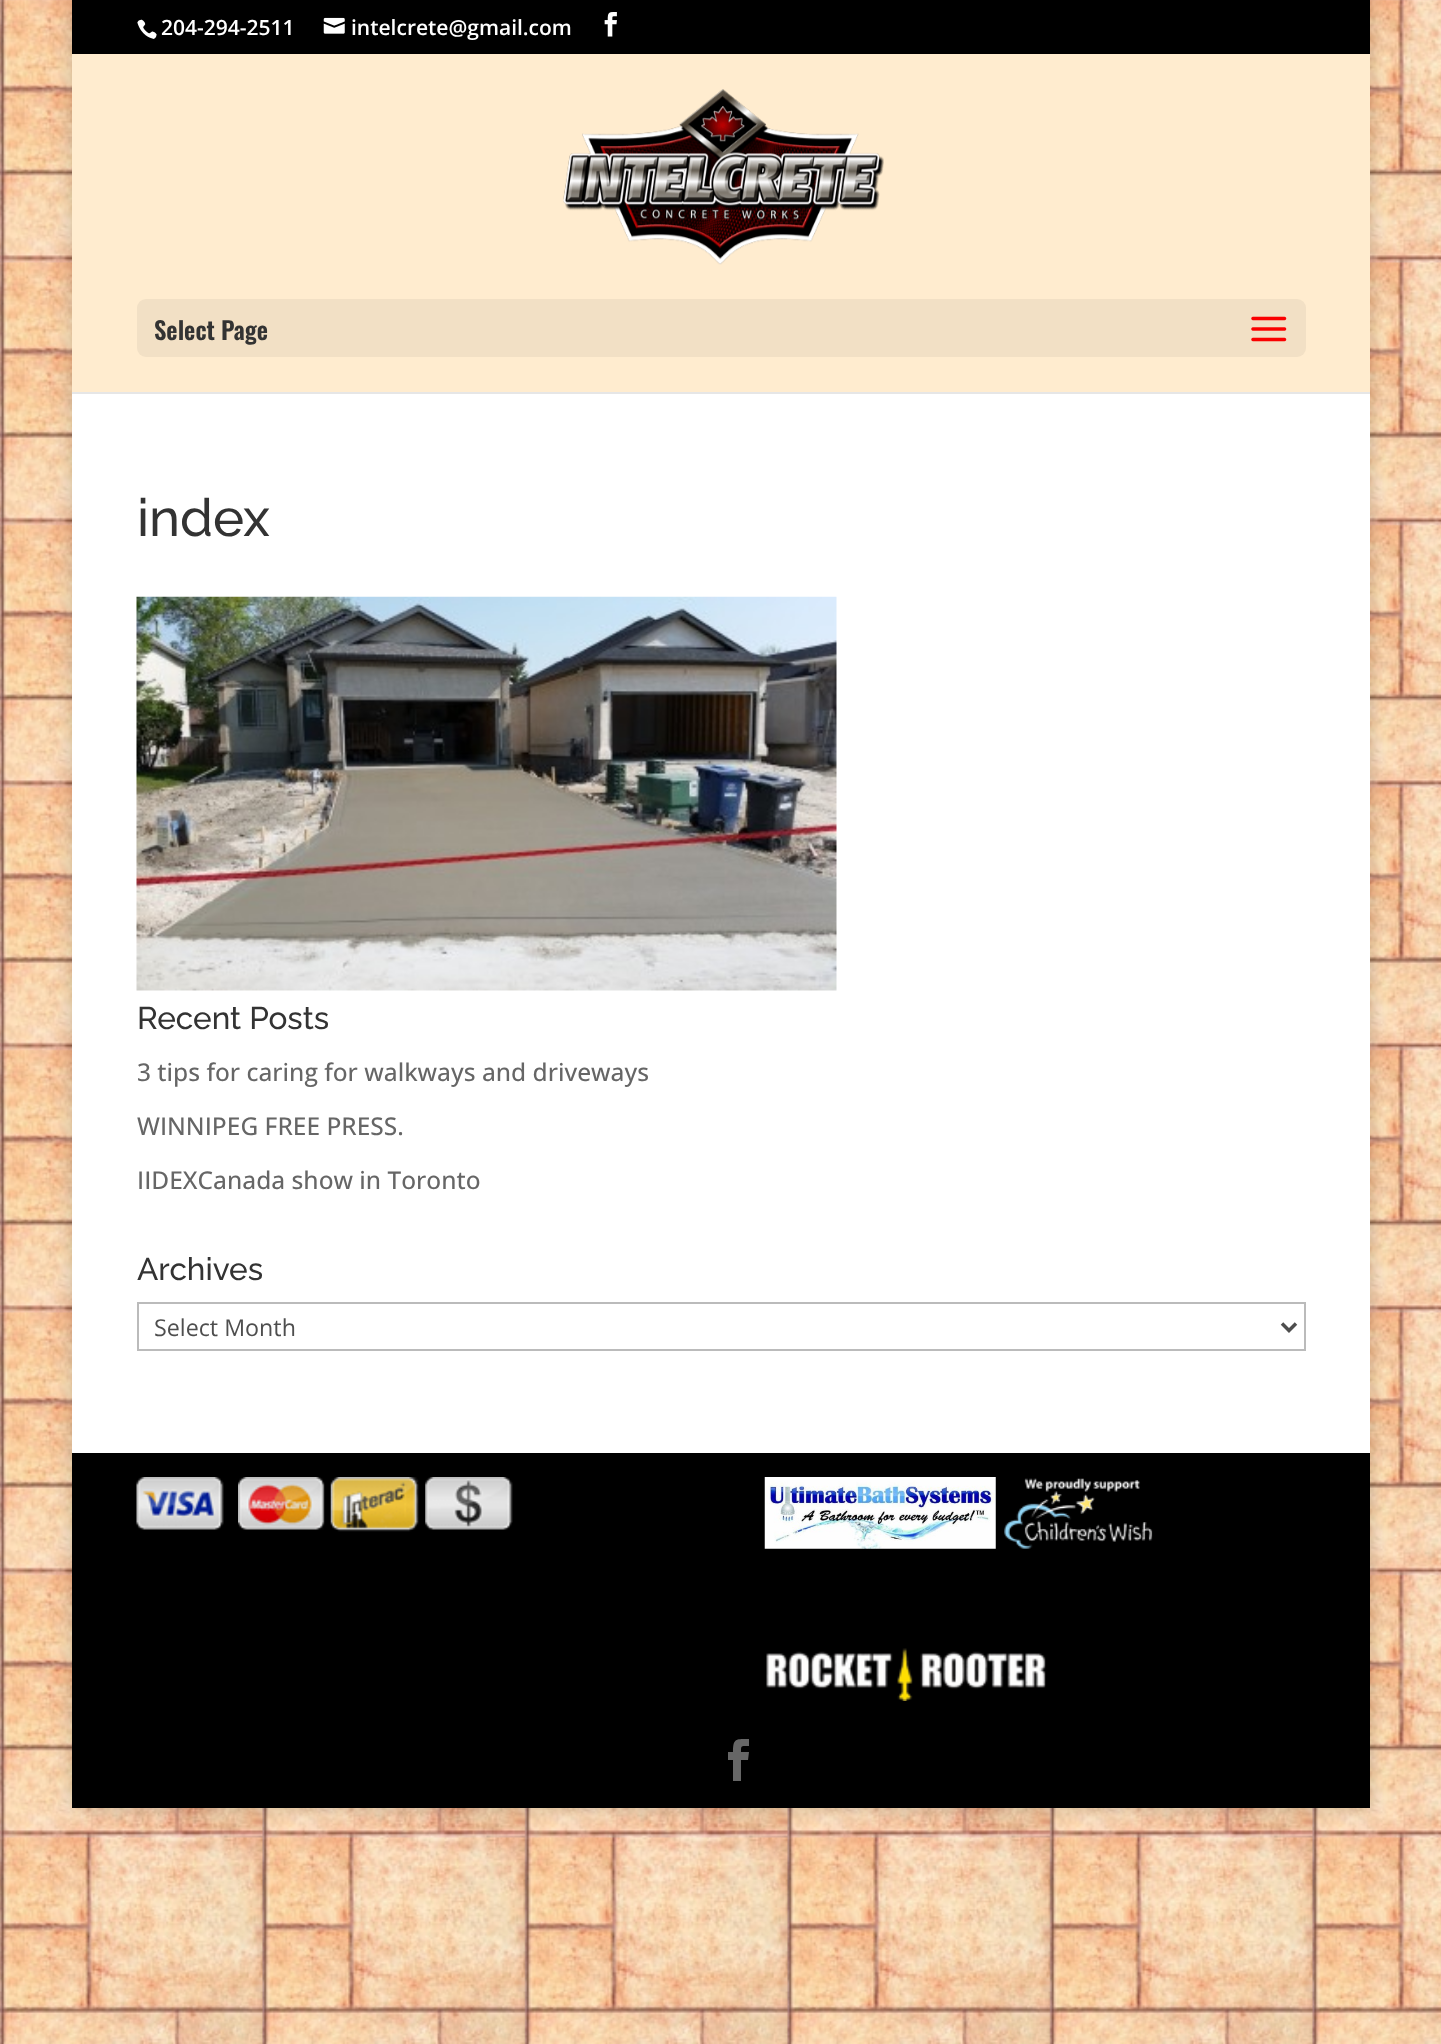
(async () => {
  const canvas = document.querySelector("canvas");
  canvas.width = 1441;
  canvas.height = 2044;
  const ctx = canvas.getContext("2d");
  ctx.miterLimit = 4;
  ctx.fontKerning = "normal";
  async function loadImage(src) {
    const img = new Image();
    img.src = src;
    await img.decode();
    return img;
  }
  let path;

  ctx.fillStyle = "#ffffff";
  ctx.fillRect(0, 0, 1441, 2044);
  ctx.drawImage(await loadImage("img/1.png"), 0, 0, 1441, 2044);
  ctx.fillStyle = "rgba(0, 0, 0, 0.2)";
  ctx.filter = "blur(9px)";
  ctx.beginPath();
  ctx.rect(72, 0, 1298, 1808);
  ctx.fill();
  ctx.filter = "none";
  ctx.fillStyle = "#000000";
  ctx.fillRect(72, 0, 1298, 54);
  ctx.drawImage(await loadImage("img/2.png"), 137, 19, 20, 20);
  ctx.drawImage(await loadImage("img/3.png"), 323, 17, 22, 17);
  ctx.drawImage(await loadImage("img/4.png"), 604, 12, 13, 25);
  ctx.fillStyle = "#e6e6e6";
  ctx.fillRect(72, 392, 1298, 2);
  ctx.fillStyle = "#ffeccf";
  ctx.fillRect(72, 54, 1298, 338);
  ctx.drawImage(await loadImage("img/5.png"), 563, 89, 321, 176);
  ctx.fillStyle = "#f2e0c5";
  ctx.beginPath();
  ctx.roundRect(137, 299, 1169, 58, 9);
  ctx.fill();
  ctx.drawImage(await loadImage("img/6.png"), 1251, 316, 36, 26);
  ctx.fillStyle = "#ffffff";
  ctx.fillRect(72, 394, 1298, 1059);
  ctx.drawImage(await loadImage("img/7.png"), 136, 596, 701, 395);
  ctx.strokeStyle = "#bbbbbb";
  ctx.lineWidth = 2;
  ctx.strokeRect(138, 1303, 1167, 47);
  path = new Path2D("M1282 1323.5L1289 1330.5L1296 1323.5");
  ctx.strokeStyle = "#4e4e4e";
  ctx.lineWidth = 3.5;
  ctx.stroke(path);
  ctx.fillStyle = "#000000";
  ctx.fillRect(72, 1453, 1298, 355);
  ctx.drawImage(await loadImage("img/8.png"), 136, 1477, 88, 53);
  ctx.drawImage(await loadImage("img/9.png"), 238, 1477, 87, 53);
  ctx.drawImage(await loadImage("img/10.png"), 330, 1477, 89, 55);
  ctx.drawImage(await loadImage("img/11.png"), 425, 1477, 88, 53);
  ctx.drawImage(await loadImage("img/12.png"), 764, 1477, 232, 72);
  ctx.drawImage(await loadImage("img/13.png"), 1004, 1478, 149, 71);
  ctx.drawImage(await loadImage("img/14.png"), 766, 1648, 280, 53);
  ctx.fillStyle = "#666666";
  path = new Path2D("M733 1781H741V1760H748L749 1752H741C741 1745 741 1746 749 1746V1739C736 1739 733 1738 733 1752H728V1760H733Z");
  ctx.fill(path);
  ctx.font = "600 21px Open Sans";
  ctx.fillStyle = "#ffffff";
  ctx.fillText("204-294-2511", 161, 35);
  ctx.fillText("intelcrete@gmail.com", 351, 35);
  ctx.font = "600 24.5px Oswald";
  ctx.fillStyle = "#333333";
  ctx.fillText("Select Page", 154, 340);
  ctx.font = "500 52.5px Raleway";
  ctx.fillText("index", 137, 536);
  ctx.font = "500 31.5px Raleway";
  ctx.fillText("Recent Posts", 137, 1029);
  ctx.font = "500 24.5px Open Sans";
  ctx.fillStyle = "#666666";
  for (const [text, x, y] of [
    ["3 tips for caring for walkways and driveways", 137, 1081],
    ["WINNIPEG FREE PRESS.", 137, 1135],
    ["IIDEXCanada show in Toronto", 137, 1189],
  ]) {
    ctx.fillText(text, x, y);
  }
  ctx.font = "500 31.5px Raleway";
  ctx.fillStyle = "#333333";
  ctx.fillText("Archives", 137, 1280);
  ctx.font = "23.25px Open Sans";
  ctx.fillStyle = "#4e4e4e";
  ctx.fillText("Select Month", 154, 1336);
})();
